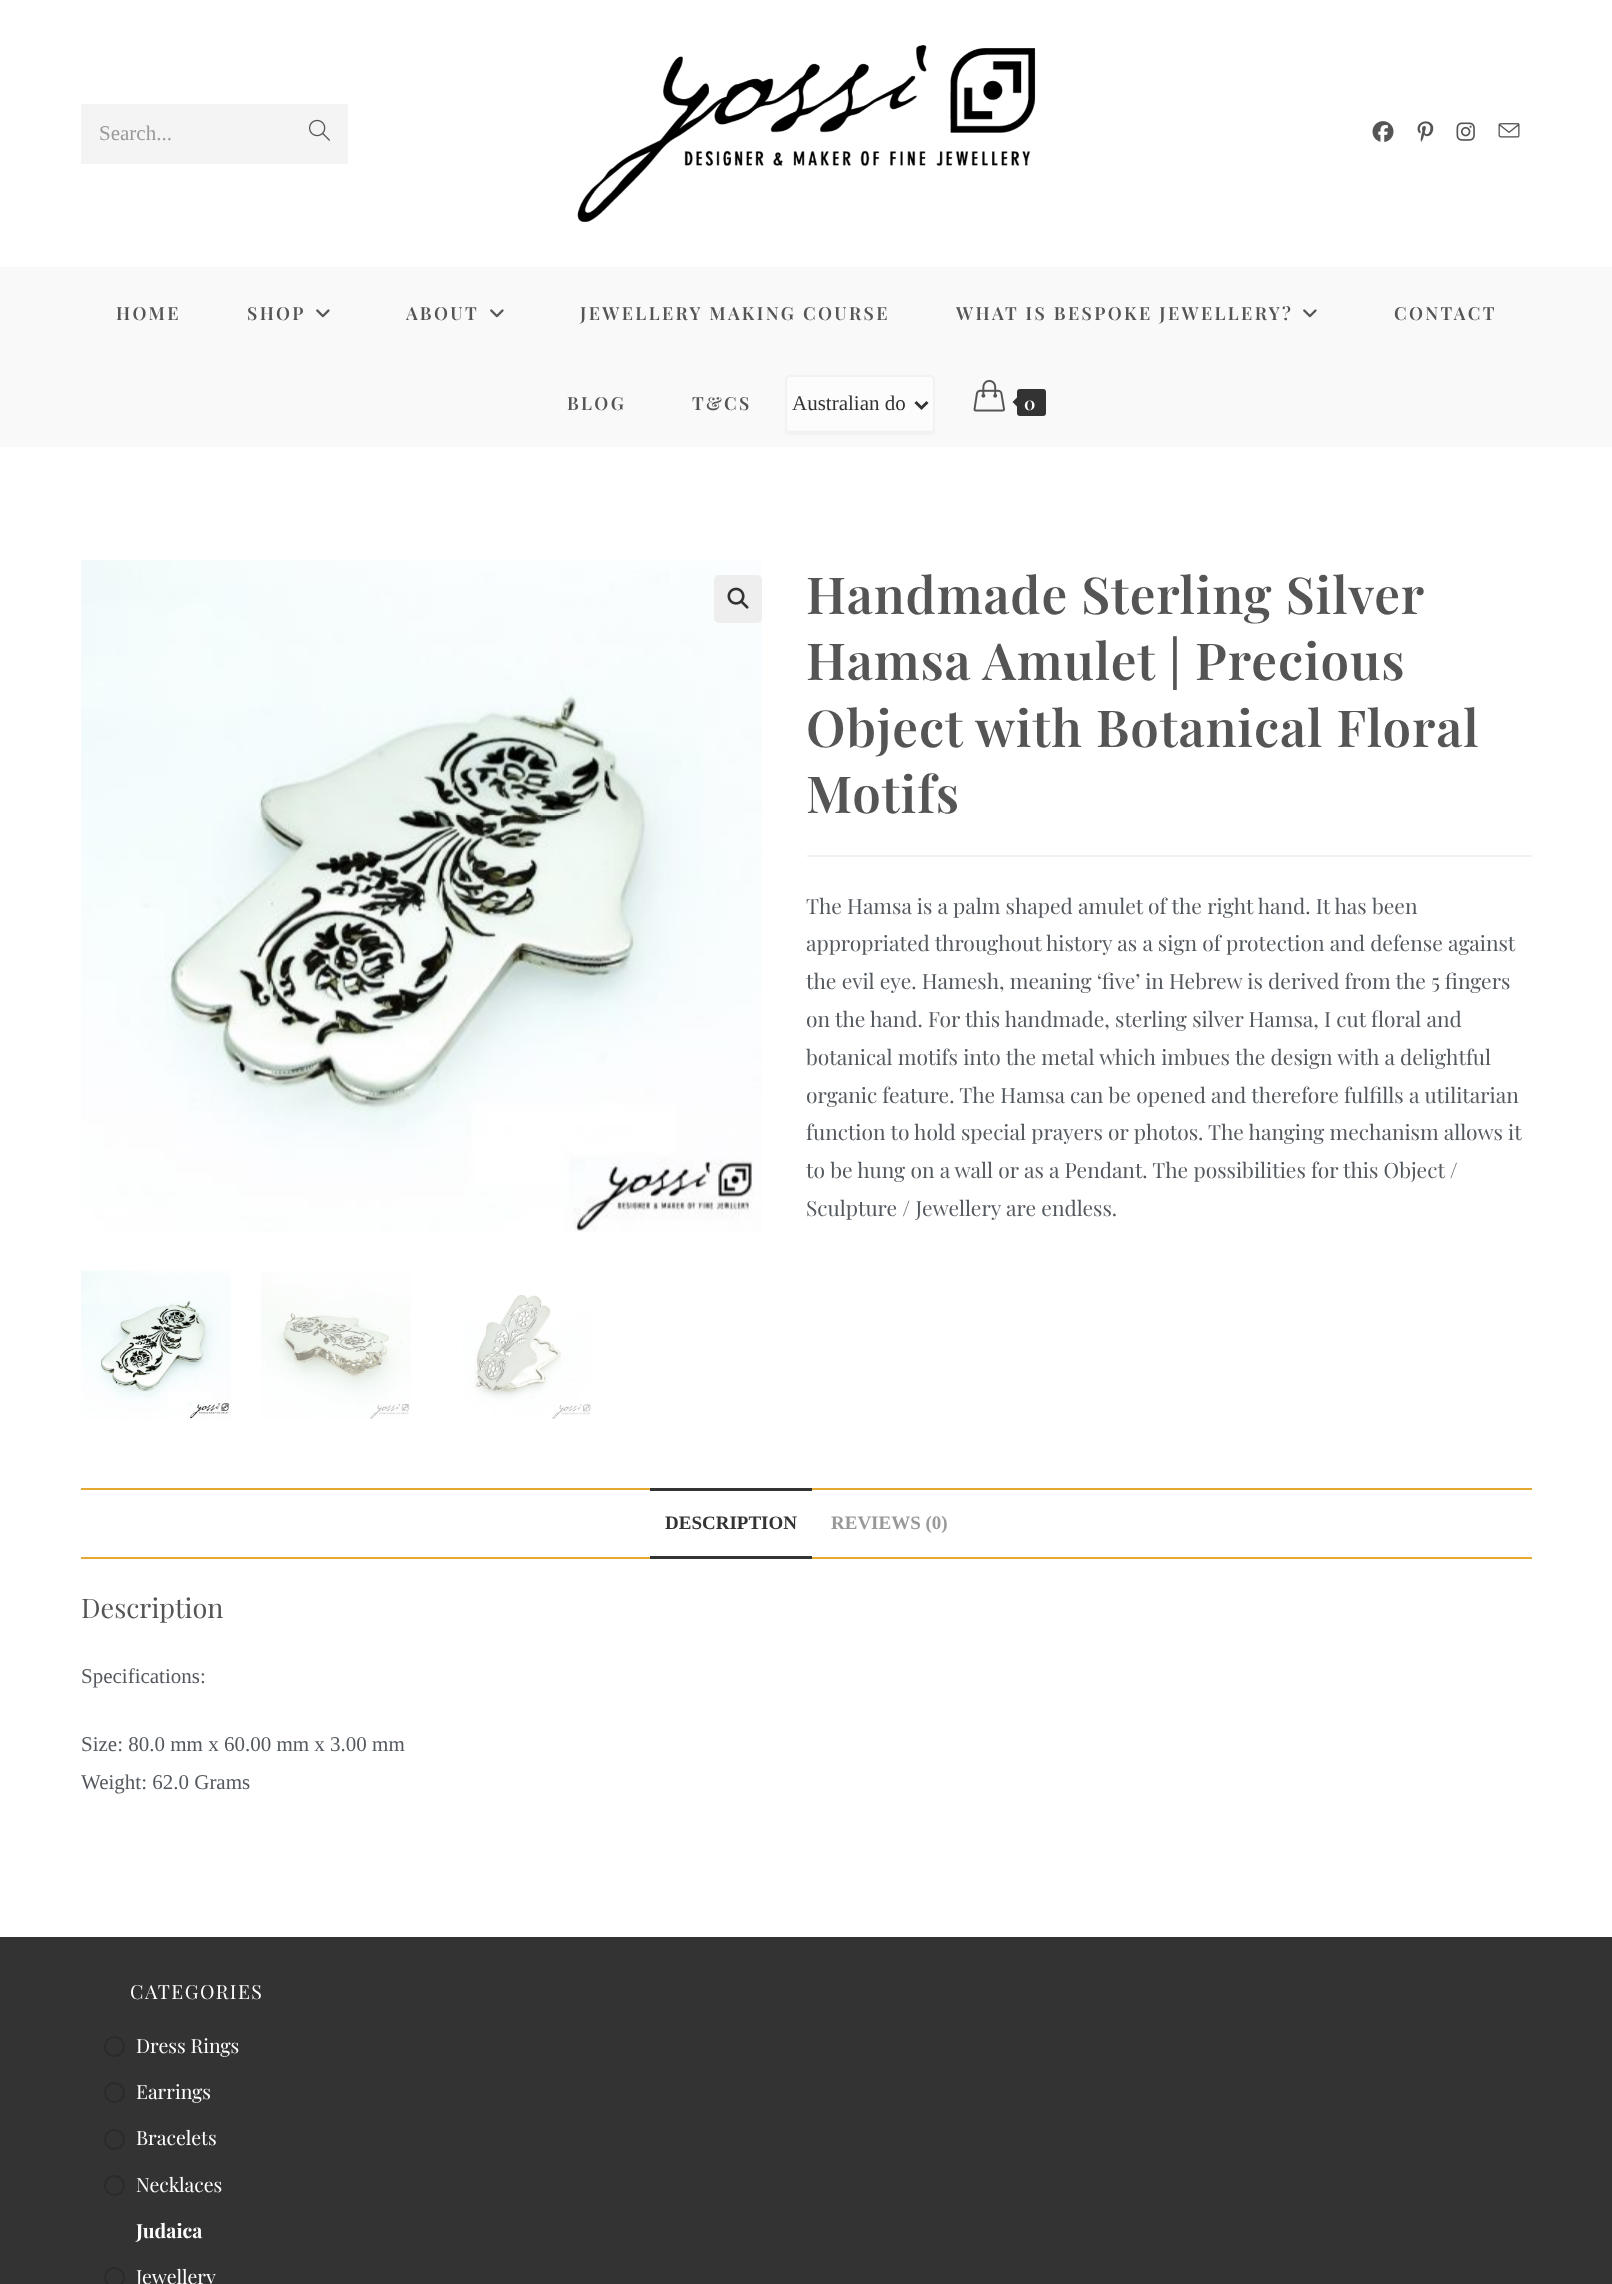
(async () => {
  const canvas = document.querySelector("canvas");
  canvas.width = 1612;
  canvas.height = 2284;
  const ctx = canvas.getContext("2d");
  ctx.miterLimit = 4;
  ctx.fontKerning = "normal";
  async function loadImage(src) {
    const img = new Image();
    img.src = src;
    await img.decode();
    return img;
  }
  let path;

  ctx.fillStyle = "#ffffff";
  ctx.fillRect(0, 0, 1612, 2284);
  ctx.fillStyle = "#f4f4f4";
  ctx.fillRect(81, 104, 267, 60);
  ctx.drawImage(await loadImage("img/1.png"), 309, 119, 21, 22);
  ctx.drawImage(await loadImage("img/2.png"), 577, 45, 459, 177);
  ctx.drawImage(await loadImage("img/3.png"), 1372, 121, 22, 21);
  ctx.drawImage(await loadImage("img/4.png"), 1417, 121, 17, 21);
  ctx.drawImage(await loadImage("img/5.png"), 1456, 122, 19, 19);
  ctx.drawImage(await loadImage("img/6.png"), 1498, 123, 22, 15);
  ctx.fillStyle = "#f9f9f9";
  ctx.fillRect(0, 267, 1612, 180);
  ctx.drawImage(await loadImage("img/7.png"), 316, 309, 14, 9);
  ctx.drawImage(await loadImage("img/7.png"), 490, 309, 14, 9);
  ctx.drawImage(await loadImage("img/7.png"), 1303, 309, 14, 9);
  ctx.fillStyle = "#fcfcfc";
  path = new Path2D("M789 376H930C932 376 933 378 933 380V430H786V380C786 378 787 376 789 376Z");
  ctx.fill(path);
  ctx.beginPath();
  ctx.roundRect(786, 376, 148, 58, 4);
  ctx.strokeStyle = "#f2f2f2";
  ctx.lineWidth = 2;
  ctx.stroke();
  ctx.fillStyle = "#f2f2f2";
  ctx.fillRect(788, 431, 145, 2);
  path = new Path2D("M915.5 402L921.5 408L927.5 402");
  ctx.strokeStyle = "#333333";
  ctx.lineWidth = 3;
  ctx.stroke(path);
  ctx.drawImage(await loadImage("img/8.png"), 973, 379, 32, 33);
  ctx.fillStyle = "#333333";
  ctx.beginPath();
  ctx.roundRect(1017, 389, 29, 27, 3);
  ctx.fill();
  path = new Path2D("M1020 394.5V409.5L1012.5 402Z");
  ctx.fill(path);
  ctx.drawImage(await loadImage("img/9.png"), 81, 560, 681, 672);
  ctx.fillStyle = "#eeeeee";
  ctx.beginPath();
  ctx.roundRect(714, 575, 48, 48, 5);
  ctx.fill();
  ctx.drawImage(await loadImage("img/10.png"), 727, 587, 22, 22);
  ctx.drawImage(await loadImage("img/11.png"), 81, 1270, 150, 149);
  ctx.drawImage(await loadImage("img/12.png"), 261, 1271, 150, 148);
  ctx.drawImage(await loadImage("img/13.png"), 463, 1294, 128, 125);
  for (const [x, y, w, h, color] of [
    [807, 855, 725, 2, "#f1f1f1"],
    [81, 1488, 1451, 2, "#e4a833"],
    [81, 1557, 1451, 2, "#e4a833"],
    [650, 1488, 162, 3, "#333333"],
    [650, 1556, 162, 3, "#333333"],
    [0, 1937, 1612, 347, "#333333"],
  ]) {
    ctx.fillStyle = color;
    ctx.fillRect(x, y, w, h);
  }
  ctx.beginPath();
  ctx.arc(114.5, 2046.5, 9.5, 0, Math.PI * 2);
  ctx.strokeStyle = "#2b2b2b";
  ctx.lineWidth = 2;
  ctx.stroke();
  ctx.beginPath();
  ctx.arc(114.5, 2092.5, 9.5, 0, Math.PI * 2);
  ctx.stroke();
  ctx.beginPath();
  ctx.arc(114.5, 2139.5, 9.5, 0, Math.PI * 2);
  ctx.stroke();
  ctx.beginPath();
  ctx.arc(114.5, 2185.5, 9.5, 0, Math.PI * 2);
  ctx.stroke();
  ctx.beginPath();
  ctx.arc(114.5, 2277.5, 9.5, 0, Math.PI * 2);
  ctx.stroke();
  ctx.font = "21px Liberation Serif";
  ctx.fillStyle = "#999999";
  ctx.fillText("Search...", 99, 140);
  ctx.letterSpacing = "2.4px";
  ctx.font = "600 18px Playfair Display";
  ctx.fillStyle = "#555555";
  for (const [text, x, y] of [
    ["HOME", 116, 320],
    ["SHOP", 247, 320],
    ["ABOUT", 406, 320],
    ["JEWELLERY MAKING COURSE", 580, 320],
    ["WHAT IS BESPOKE JEWELLERY?", 956, 320],
    ["CONTACT", 1394, 320],
    ["BLOG", 567, 410],
    ["T&CS", 692, 410],
  ]) {
    ctx.fillText(text, x, y);
  }
  ctx.letterSpacing = "0px";
  ctx.font = "21px Liberation Serif";
  ctx.fillStyle = "#333333";
  ctx.fillText("Australian do", 792, 410);
  ctx.letterSpacing = "2.4px";
  ctx.font = "600 18px Playfair Display";
  ctx.fillStyle = "#ffffff";
  ctx.fillText("0", 1024, 410);
  ctx.letterSpacing = "0.9px";
  ctx.font = "600 51px Playfair Display";
  ctx.fillStyle = "#555555";
  for (const [text, x, y] of [
    ["Handmade Sterling Silver", 806, 614],
    ["Hamsa Amulet | Precious", 806, 680],
    ["Object with Botanical Floral", 806, 747],
    ["Motifs", 806, 813],
  ]) {
    ctx.fillText(text, x, y);
  }
  ctx.letterSpacing = "0px";
  ctx.font = "21px Playfair Display";
  ctx.fillStyle = "#54595f";
  for (const [text, x, y] of [
    ["The Hamsa is a palm shaped amulet of the right hand. It has been", 806, 914],
    ["appropriated throughout history as a sign of protection and defense against", 806, 951],
    ["the evil eye. Hamesh, meaning ‘five’ in Hebrew is derived from the 5 fingers", 806, 989],
    ["on the hand. For this handmade, sterling silver Hamsa, I cut floral and", 806, 1027],
    ["botanical motifs into the metal which imbues the design with a delightful", 806, 1065],
    ["organic feature. The Hamsa can be opened and therefore fulfills a utilitarian", 806, 1103],
    ["function to hold special prayers or photos. The hanging mechanism allows it", 806, 1140],
    ["to be hung on a wall or as a Pendant. The possibilities for this Object /", 806, 1178],
    ["Sculpture / Jewellery are endless.", 806, 1216],
  ]) {
    ctx.fillText(text, x, y);
  }
  ctx.font = "bold 19px Liberation Serif";
  ctx.fillStyle = "#333333";
  ctx.fillText("DESCRIPTION", 665, 1529);
  ctx.fillStyle = "#999999";
  ctx.fillText("REVIEWS (0)", 831, 1529);
  ctx.font = "27px Playfair Display";
  ctx.fillStyle = "#555555";
  ctx.fillText("Description", 81, 1618);
  ctx.font = "21px Liberation Serif";
  ctx.fillStyle = "#54595f";
  for (const [text, x, y] of [
    ["Specifications:", 81, 1683],
    ["Size: 80.0 mm x 60.00 mm x 3.00 mm", 81, 1751],
    ["Weight: 62.0 Grams", 81, 1789],
  ]) {
    ctx.fillText(text, x, y);
  }
  ctx.letterSpacing = "1.5px";
  ctx.font = "19.5px Playfair Display";
  ctx.fillStyle = "#ffffff";
  ctx.fillText("CATEGORIES", 130, 1999);
  ctx.letterSpacing = "0px";
  for (const [text, x, y] of [
    ["Dress Rings", 136, 2053],
    ["Earrings", 136, 2099],
    ["Bracelets", 136, 2145],
    ["Necklaces", 136, 2192],
  ]) {
    ctx.fillText(text, x, y);
  }
  ctx.font = "bold 19.5px Playfair Display";
  ctx.fillText("Judaica", 136, 2238);
  ctx.font = "19.5px Playfair Display";
  ctx.fillText("Jewellery", 136, 2284);
})();
